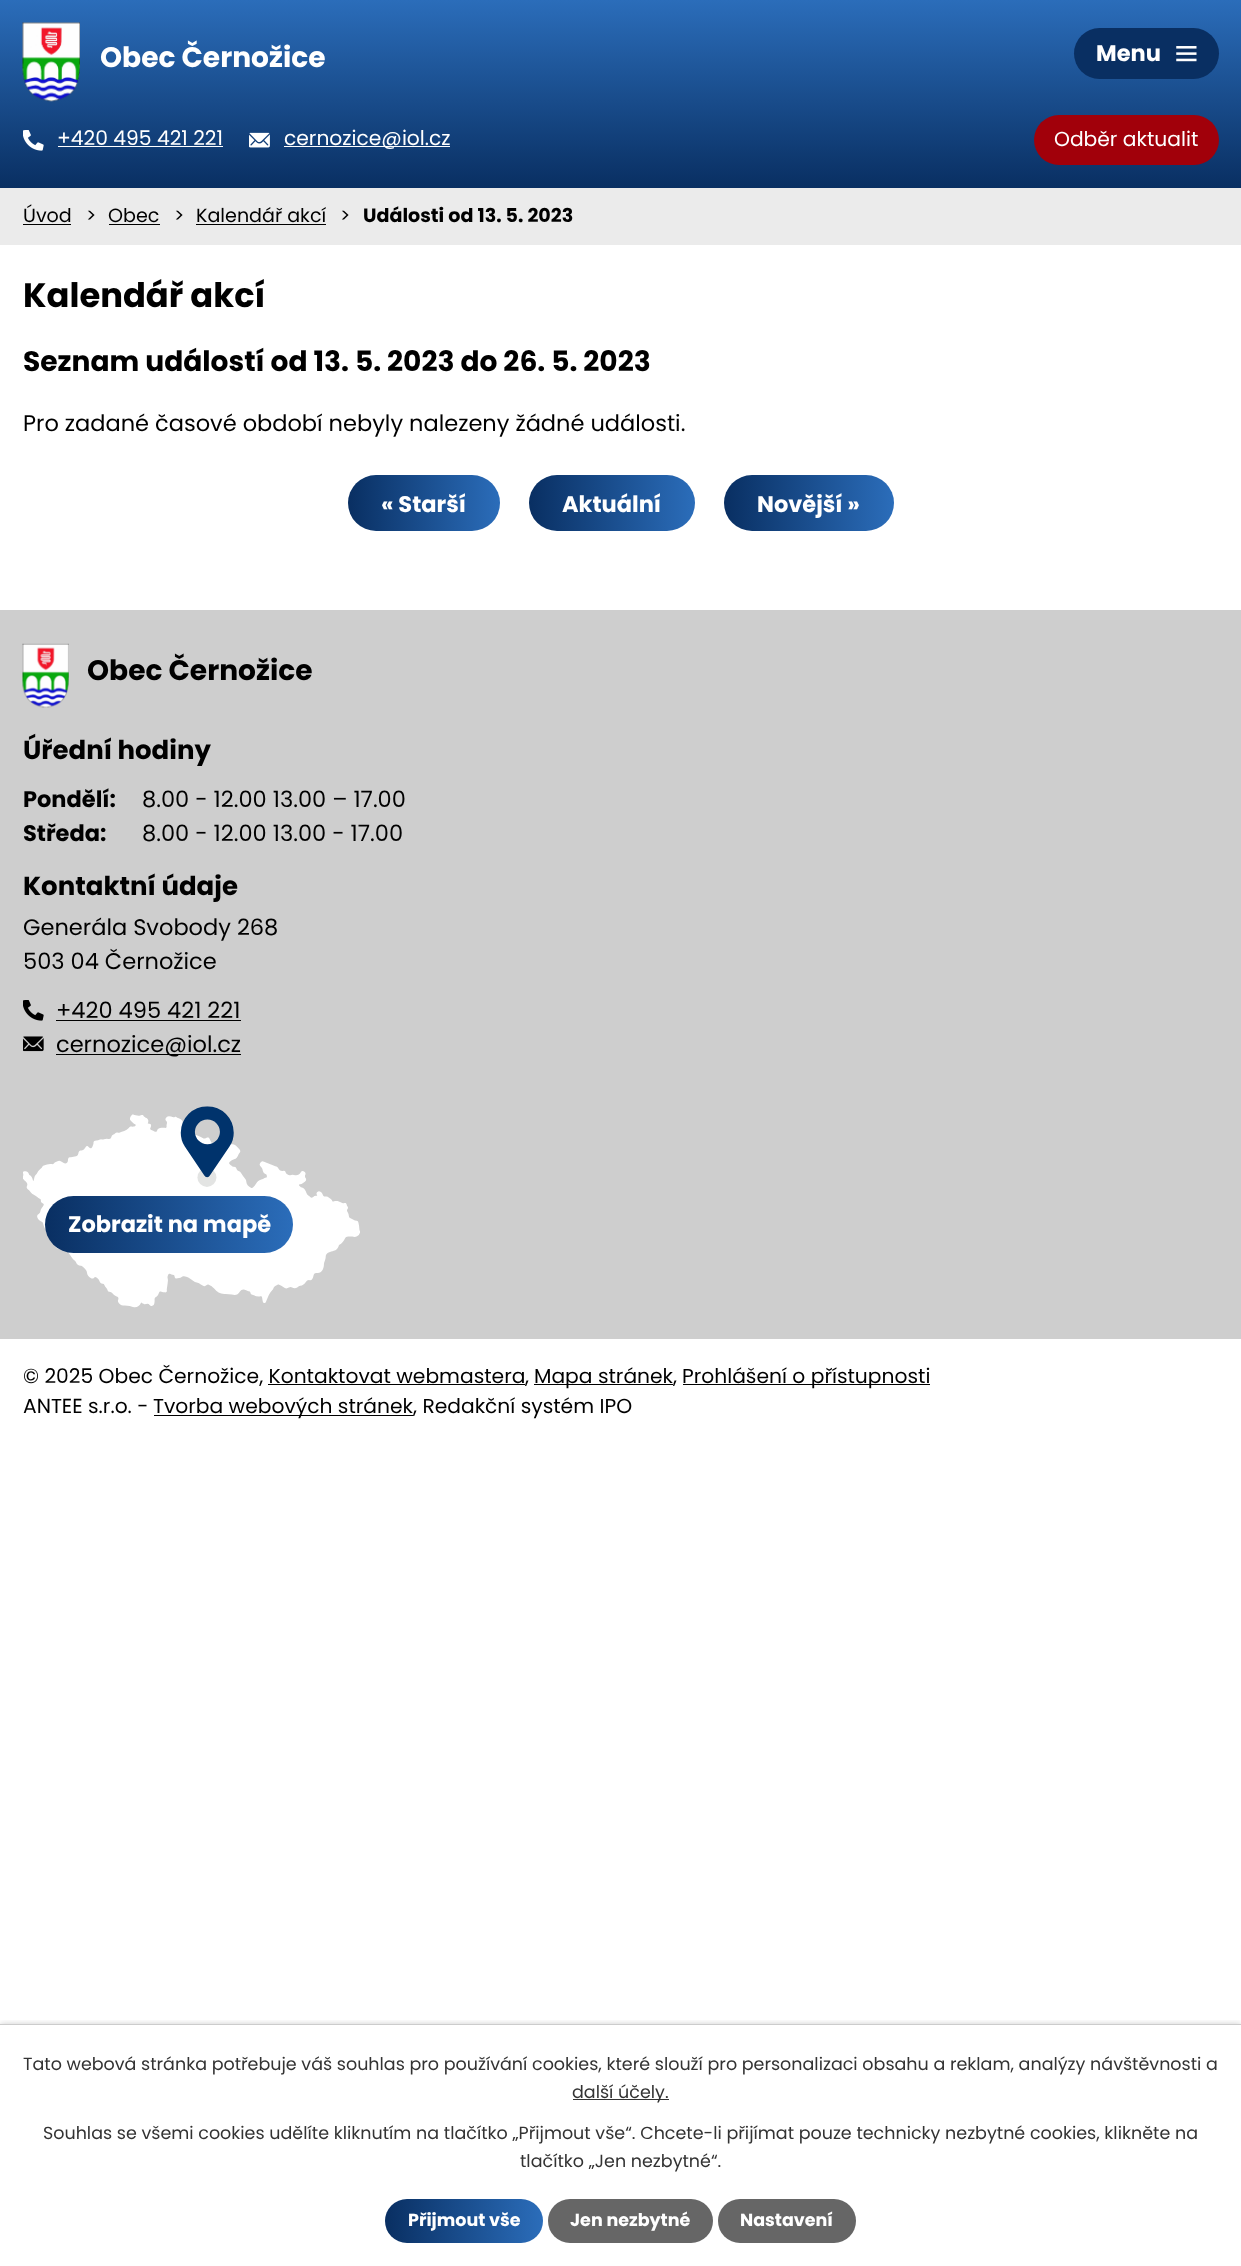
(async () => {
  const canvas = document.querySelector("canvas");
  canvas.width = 1241;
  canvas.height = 2266;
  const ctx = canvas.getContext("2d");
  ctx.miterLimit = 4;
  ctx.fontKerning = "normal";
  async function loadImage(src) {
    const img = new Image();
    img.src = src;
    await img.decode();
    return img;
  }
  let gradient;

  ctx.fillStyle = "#ffffff";
  ctx.fillRect(0, 0, 1241, 2266);
  gradient = ctx.createLinearGradient(621, 0, 621, 188);
  gradient.addColorStop(0, "#2b6dba");
  gradient.addColorStop(1, "#092f62");
  ctx.fillStyle = gradient;
  ctx.fillRect(0, 0, 1241, 188);
  ctx.drawImage(await loadImage("img/1.png"), 22, 22, 58, 80);
  ctx.drawImage(await loadImage("img/2.png"), 23, 130, 21, 21);
  ctx.fillStyle = "#ffffff";
  ctx.fillRect(58, 146, 165, 1);
  ctx.drawImage(await loadImage("img/3.png"), 249, 132, 21, 16);
  ctx.fillRect(284, 146, 166, 1);
  ctx.fillStyle = "#a1000a";
  ctx.beginPath();
  ctx.roundRect(1034, 115, 185, 50, 25);
  ctx.fill();
  ctx.fillStyle = "#092f62";
  ctx.beginPath();
  ctx.roundRect(1074, 28, 145, 51, 25.5);
  ctx.fill();
  ctx.drawImage(await loadImage("img/4.png"), 1176, 46, 21, 16);
  for (const [x, y, w, h, color] of [
    [0, 188, 1241, 57, "#ebebeb"],
    [23, 224, 48, 1, "#000000"],
    [109, 224, 51, 1, "#000000"],
    [196, 224, 130, 1, "#000000"],
  ]) {
    ctx.fillStyle = color;
    ctx.fillRect(x, y, w, h);
  }
  gradient = ctx.createLinearGradient(500, 503, 348, 503);
  gradient.addColorStop(0, "#2b6dba");
  gradient.addColorStop(1, "#092f62");
  ctx.fillStyle = gradient;
  ctx.beginPath();
  ctx.roundRect(348, 475, 152, 56, 28);
  ctx.fill();
  gradient = ctx.createLinearGradient(695, 503, 529, 503);
  gradient.addColorStop(0, "#2b6dba");
  gradient.addColorStop(1, "#092f62");
  ctx.fillStyle = gradient;
  ctx.beginPath();
  ctx.roundRect(529, 475, 166, 56, 28);
  ctx.fill();
  gradient = ctx.createLinearGradient(894, 503, 724, 503);
  gradient.addColorStop(0, "#2b6dba");
  gradient.addColorStop(1, "#092f62");
  ctx.fillStyle = gradient;
  ctx.beginPath();
  ctx.roundRect(724, 475, 170, 56, 28);
  ctx.fill();
  ctx.fillStyle = "#cecece";
  ctx.fillRect(0, 610, 1241, 729);
  ctx.drawImage(await loadImage("img/5.png"), 22, 643, 47, 65);
  ctx.drawImage(await loadImage("img/6.png"), 23, 1000, 21, 21);
  ctx.fillStyle = "#000000";
  ctx.fillRect(56, 1020, 185, 1);
  ctx.drawImage(await loadImage("img/7.png"), 23, 1036, 21, 16);
  ctx.fillRect(56, 1054, 185, 1);
  ctx.drawImage(await loadImage("img/8.png"), 23, 1106, 337, 202);
  gradient = ctx.createLinearGradient(293, 1224, 45, 1224);
  gradient.addColorStop(0, "#2b6dba");
  gradient.addColorStop(1, "#092f62");
  ctx.fillStyle = gradient;
  ctx.beginPath();
  ctx.roundRect(45, 1196, 248, 57, 28.5);
  ctx.fill();
  for (const [x, y, w, h, color] of [
    [534, 1384, 139, 1, "#000000"],
    [683, 1384, 247, 1, "#000000"],
    [268, 1384, 257, 1, "#000000"],
    [154, 1415, 259, 1, "#000000"],
  ]) {
    ctx.fillStyle = color;
    ctx.fillRect(x, y, w, h);
  }
  ctx.save();
  ctx.beginPath();
  ctx.rect(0, 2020, 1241, 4);
  ctx.clip();
  ctx.fillStyle = "rgba(0, 0, 0, 0.2)";
  ctx.filter = "blur(3px)";
  ctx.beginPath();
  ctx.rect(0, 2024, 1241, 242);
  ctx.fill();
  ctx.filter = "none";
  ctx.restore();
  ctx.fillStyle = "#cccccc";
  ctx.fillRect(0, 2024, 1241, 1);
  ctx.fillStyle = "#333333";
  ctx.fillRect(573, 2099, 96, 1);
  gradient = ctx.createLinearGradient(543, 2221, 385, 2221);
  gradient.addColorStop(0, "#2b6dba");
  gradient.addColorStop(1, "#092f62");
  ctx.fillStyle = gradient;
  ctx.beginPath();
  ctx.roundRect(385, 2199, 158, 44, 22);
  ctx.fill();
  ctx.fillStyle = "#666666";
  ctx.beginPath();
  ctx.roundRect(548, 2199, 165, 44, 22);
  ctx.fill();
  ctx.beginPath();
  ctx.roundRect(718, 2199, 138, 44, 22);
  ctx.fill();
  ctx.font = "bold 28.1px Poppins";
  ctx.fillStyle = "#ffffff";
  ctx.fillText("Obec Černožice", 100, 67);
  ctx.font = "20.25px Poppins";
  for (const [text, x, y] of [
    ["+420 495 421 221", 57, 145],
    ["cernozice@iol.cz", 284, 145],
    ["Odběr aktualit", 1054, 146],
  ]) {
    ctx.fillText(text, x, y);
  }
  ctx.font = "bold 22.5px Poppins";
  ctx.fillText("Menu", 1096, 61);
  ctx.font = "19.1px Poppins";
  ctx.fillStyle = "#000000";
  for (const [text, x, y] of [
    ["Úvod", 23, 222],
    [">", 86, 222],
    ["Obec", 108, 222],
    [">", 174, 222],
    ["Kalendář akcí", 196, 222],
    [">", 340, 222],
  ]) {
    ctx.fillText(text, x, y);
  }
  ctx.font = "bold 19.1px Poppins";
  ctx.fillText("Události od 13. 5. 2023", 363, 222);
  ctx.font = "bold 33.75px Poppins";
  ctx.fillText("Kalendář akcí", 23, 307);
  ctx.font = "bold 28.1px Poppins";
  ctx.fillText("Seznam událostí od 13. 5. 2023 do 26. 5. 2023", 23, 371);
  ctx.font = "22.5px Poppins";
  ctx.fillText("Pro zadané časové období nebyly nalezeny žádné události.", 23, 431);
  ctx.font = "bold 22.5px Poppins";
  ctx.fillStyle = "#ffffff";
  for (const [text, x, y] of [
    ["« Starší", 381, 512],
    ["Aktuální", 562, 512],
    ["Novější »", 757, 512],
  ]) {
    ctx.fillText(text, x, y);
  }
  ctx.font = "bold 28.1px Poppins";
  ctx.fillStyle = "#000000";
  ctx.fillText("Obec Černožice", 87, 680);
  ctx.font = "bold 26px Poppins";
  ctx.fillText("Úřední hodiny", 23, 759);
  ctx.font = "bold 22.5px Poppins";
  ctx.fillText("Pondělí:", 23, 807);
  ctx.font = "22.5px Poppins";
  ctx.fillText("8.00 - 12.00 13.00 – 17.00", 142, 807);
  ctx.font = "bold 22.5px Poppins";
  ctx.fillText("Středa:", 23, 841);
  ctx.font = "22.5px Poppins";
  ctx.fillText("8.00 - 12.00 13.00 - 17.00", 142, 841);
  ctx.font = "bold 26px Poppins";
  ctx.fillText("Kontaktní údaje", 23, 895);
  ctx.font = "22.5px Poppins";
  for (const [text, x, y] of [
    ["Generála Svobody 268", 23, 935],
    ["503 04 Černožice", 23, 969],
    ["+420 495 421 221", 56, 1018],
    ["cernozice@iol.cz", 56, 1052],
  ]) {
    ctx.fillText(text, x, y);
  }
  ctx.font = "bold 22.5px Poppins";
  ctx.fillStyle = "#ffffff";
  ctx.fillText("Zobrazit na mapě", 68, 1232);
  ctx.font = "20.25px Poppins";
  ctx.fillStyle = "#000000";
  for (const [text, x, y] of [
    ["© 2025 Obec Černožice, Kontaktovat webmastera", 23, 1383],
    [",", 525, 1383],
    ["Mapa stránek,", 534, 1383],
    ["Prohlášení o přístupnosti", 682, 1383],
    ["ANTEE s.r.o. -", 23, 1413],
    ["Tvorba webových stránek, Redakční systém IPO", 153, 1413],
  ]) {
    ctx.fillText(text, x, y);
  }
  ctx.font = "17.5px Poppins";
  ctx.fillStyle = "#333333";
  for (const [text, x, y] of [
    ["Tato webová stránka potřebuje váš souhlas pro používání cookies, které slouží pro personalizaci obsahu a reklam, analýzy návštěvnosti a", 23, 2070],
    ["další účely.", 572, 2098],
    ["Souhlas se všemi cookies udělíte kliknutím na tlačítko „Přijmout vše“. Chcete-li přijímat pouze technicky nezbytné cookies, klikněte na", 43, 2139],
    ["tlačítko „Jen nezbytné“.", 520, 2167],
  ]) {
    ctx.fillText(text, x, y);
  }
  ctx.font = "bold 17.5px Poppins";
  ctx.fillStyle = "#ffffff";
  for (const [text, x, y] of [
    ["Přijmout vše", 408, 2226],
    ["Jen nezbytné", 570, 2226],
    ["Nastavení", 740, 2226],
  ]) {
    ctx.fillText(text, x, y);
  }
})();
